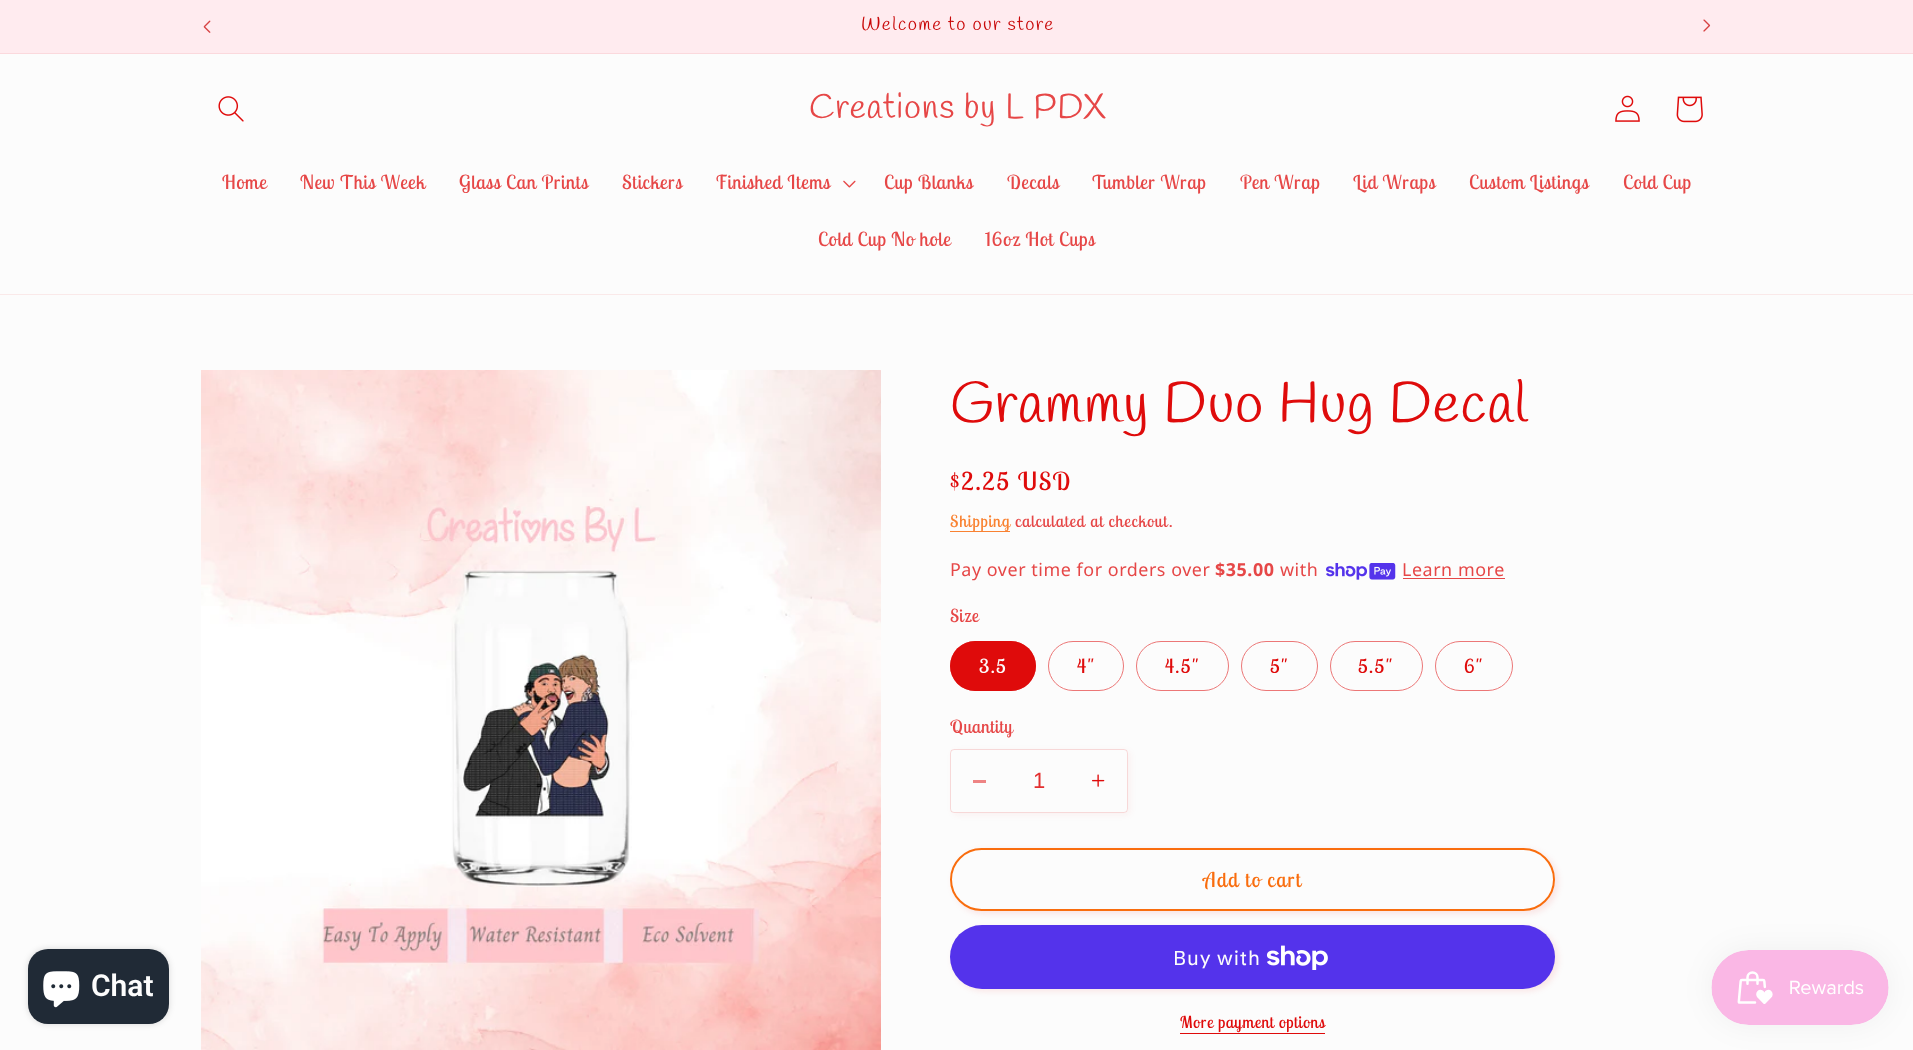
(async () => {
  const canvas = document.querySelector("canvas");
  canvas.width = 1913;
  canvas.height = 1050;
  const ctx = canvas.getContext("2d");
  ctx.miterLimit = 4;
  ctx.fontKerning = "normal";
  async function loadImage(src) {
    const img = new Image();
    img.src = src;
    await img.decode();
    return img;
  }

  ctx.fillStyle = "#fcfcfc";
  ctx.fillRect(0, 0, 1913, 1050);
  ctx.fillStyle = "#ffebef";
  ctx.fillRect(0, 0, 1913, 53);
  ctx.fillStyle = "#fbd9dd";
  ctx.fillRect(0, 53, 1913, 1);
  ctx.drawImage(await loadImage("img/1.png"), 203, 20, 8, 13);
  ctx.drawImage(await loadImage("img/2.png"), 1703, 19, 8, 13);
  ctx.fillStyle = "#fae9e9";
  ctx.fillRect(0, 294, 1913, 1);
  ctx.drawImage(await loadImage("img/3.png"), 218, 96, 26, 26);
  ctx.drawImage(await loadImage("img/4.png"), 1615, 95, 25, 27);
  ctx.drawImage(await loadImage("img/5.png"), 1676, 96, 27, 27);
  ctx.drawImage(await loadImage("img/6.png"), 843, 180, 13, 8);
  ctx.fillStyle = "rgba(0, 0, 0, 0.15)";
  ctx.filter = "blur(3px)";
  ctx.beginPath();
  ctx.roundRect(28, 949, 141, 75, 20);
  ctx.fill();
  ctx.filter = "none";
  ctx.fillStyle = "#202a36";
  ctx.beginPath();
  ctx.roundRect(28, 949, 141, 75, 20);
  ctx.fill();
  ctx.drawImage(await loadImage("img/7.png"), 43, 971, 37, 37);
  ctx.drawImage(await loadImage("img/8.png"), 201, 370, 680, 680);
  ctx.fillStyle = "#f98232";
  ctx.fillRect(950, 531, 60, 1);
  ctx.drawImage(await loadImage("img/9.png"), 1326, 563, 70, 17);
  ctx.fillStyle = "#e64747";
  ctx.fillRect(1403, 578, 102, 1);
  ctx.fillStyle = "#df0b0b";
  ctx.beginPath();
  ctx.roundRect(950, 641, 86, 50, 25);
  ctx.fill();
  ctx.beginPath();
  ctx.roundRect(950.5, 641.5, 85, 49, 24.5);
  ctx.strokeStyle = "rgba(223, 11, 11, 0.55)";
  ctx.stroke();
  ctx.beginPath();
  ctx.roundRect(1048.5, 641.5, 75, 49, 24.5);
  ctx.strokeStyle = "#ec7777";
  ctx.stroke();
  ctx.beginPath();
  ctx.roundRect(1136.5, 641.5, 92, 49, 24.5);
  ctx.stroke();
  ctx.beginPath();
  ctx.roundRect(1241.5, 641.5, 76, 49, 24.5);
  ctx.stroke();
  ctx.beginPath();
  ctx.roundRect(1330.5, 641.5, 92, 49, 24.5);
  ctx.stroke();
  ctx.beginPath();
  ctx.roundRect(1435.5, 641.5, 77, 49, 24.5);
  ctx.stroke();
  ctx.fillStyle = "rgba(223, 11, 11, 0.05)";
  ctx.filter = "blur(3px)";
  ctx.beginPath();
  ctx.roundRect(953, 751, 177, 64, 4);
  ctx.fill();
  ctx.filter = "none";
  ctx.fillStyle = "#fcfcfc";
  ctx.beginPath();
  ctx.roundRect(950, 749, 178, 64, 4);
  ctx.fill();
  ctx.fillStyle = "#ee8484";
  ctx.fillRect(973, 780, 13, 3);
  ctx.drawImage(await loadImage("img/10.png"), 1092, 774, 13, 13);
  ctx.beginPath();
  ctx.roundRect(950.5, 749.5, 177, 63, 3.5);
  ctx.strokeStyle = "rgba(223, 11, 11, 0.15)";
  ctx.stroke();
  ctx.fillStyle = "rgba(223, 11, 11, 0.1)";
  ctx.filter = "blur(3px)";
  ctx.beginPath();
  ctx.roundRect(953, 850, 605, 64, 32);
  ctx.fill();
  ctx.filter = "none";
  ctx.fillStyle = "#fcfcfc";
  ctx.beginPath();
  ctx.roundRect(950, 848, 605, 63, 31.5);
  ctx.fill();
  ctx.beginPath();
  ctx.roundRect(950.5, 848.5, 604, 62, 31);
  ctx.strokeStyle = "#fcfcfc";
  ctx.stroke();
  ctx.beginPath();
  ctx.roundRect(951, 849, 603, 61, 30.5);
  ctx.strokeStyle = "#f96d0e";
  ctx.lineWidth = 2;
  ctx.stroke();
  ctx.fillStyle = "rgba(223, 11, 11, 0.1)";
  ctx.filter = "blur(3px)";
  ctx.beginPath();
  ctx.roundRect(953, 928, 605, 63, 31.5);
  ctx.fill();
  ctx.filter = "none";
  ctx.fillStyle = "#5433eb";
  ctx.beginPath();
  ctx.roundRect(950, 925, 605, 64, 32);
  ctx.fill();
  ctx.drawImage(await loadImage("img/11.png"), 1266, 945, 62, 25);
  ctx.fillStyle = "#df0b0b";
  ctx.fillRect(1180, 1033, 145, 1);
  ctx.fillStyle = "rgba(0, 0, 0, 0.05)";
  ctx.filter = "blur(15.5px)";
  ctx.beginPath();
  ctx.roundRect(1711, 950, 178, 75, 37.5);
  ctx.fill();
  ctx.filter = "none";
  ctx.drawImage(await loadImage("img/12.png"), 1711, 950, 178, 75);
  ctx.letterSpacing = "1.4px";
  ctx.font = "18.75px Handlee";
  ctx.fillStyle = "#c90a0a";
  ctx.fillText("Welcome to our store", 861, 30);
  ctx.letterSpacing = "0.9px";
  ctx.font = "34.5px Handlee";
  ctx.fillStyle = "#e64747";
  ctx.fillText("Creations by L PDX", 809, 118);
  ctx.letterSpacing = "0.8px";
  ctx.font = "19.25px Lobster Two";
  for (const [text, x, y] of [
    ["Home", 222, 189],
    ["New This Week", 300, 189],
    ["Glass Can Prints", 459, 189],
    ["Stickers", 622, 189],
    ["Finished Items", 716, 189],
    ["Cup Blanks", 884, 189],
    ["Decals", 1007, 189],
    ["Tumbler Wrap", 1092, 189],
    ["Pen Wrap", 1240, 189],
    ["Lid Wraps", 1353, 189],
    ["Custom Listings", 1469, 189],
    ["Cold Cup", 1623, 189],
    ["Cold Cup No hole", 818, 246],
    ["16oz Hot Cups", 985, 246],
  ]) {
    ctx.fillText(text, x, y);
  }
  ctx.letterSpacing = "0px";
  ctx.font = "600 30px Roboto";
  ctx.fillStyle = "#fcfcfc";
  ctx.fillText("Chat", 91, 996);
  ctx.letterSpacing = "0.9px";
  ctx.font = "57.5px Handlee";
  ctx.fillStyle = "#df0b0b";
  ctx.fillText("Grammy Duo Hug Decal", 950, 422);
  ctx.letterSpacing = "1.75px";
  ctx.font = "24.75px Lobster Two";
  ctx.fillText("$2.25 USD", 950, 490);
  ctx.letterSpacing = "1px";
  ctx.font = "16.5px Lobster Two";
  ctx.fillStyle = "#f98231";
  ctx.fillText("Shipping", 950, 527);
  ctx.fillStyle = "#e64747";
  ctx.fillText("calculated at checkout.", 1015, 527);
  ctx.letterSpacing = "0.55px";
  ctx.font = "17.9px Noto Sans";
  ctx.fillText("Pay over time for orders over", 950, 576);
  ctx.font = "bold 17.9px Noto Sans";
  ctx.fillText("$35.00", 1215, 576);
  ctx.font = "17.9px Noto Sans";
  ctx.fillText("with", 1280, 576);
  ctx.fillText("Learn more", 1402, 576);
  ctx.font = "17.9px Lobster Two";
  ctx.fillText("Size", 950, 622);
  ctx.letterSpacing = "1.4px";
  ctx.font = "19.25px Lobster Two";
  ctx.fillStyle = "#fcfcfc";
  ctx.fillText("3.5", 979, 673);
  ctx.fillStyle = "#df0b0b";
  for (const [text, x, y] of [
    ["4\"", 1077, 673],
    ["4.5\"", 1165, 673],
    ["5\"", 1270, 673],
    ["5.5\"", 1358, 673],
    ["6\"", 1464, 673],
  ]) {
    ctx.fillText(text, x, y);
  }
  ctx.letterSpacing = "0.55px";
  ctx.font = "17.9px Lobster Two";
  ctx.fillStyle = "#e64747";
  ctx.fillText("Quantity", 950, 733);
  ctx.letterSpacing = "0px";
  ctx.font = "22px Liberation Sans";
  ctx.fillStyle = "#e32f2f";
  ctx.fillText("1", 1033, 788);
  ctx.letterSpacing = "1.4px";
  ctx.font = "20.5px Lobster Two";
  ctx.fillStyle = "#f96d0e";
  ctx.fillText("Add to cart", 1203, 887);
  ctx.letterSpacing = "0.8px";
  ctx.font = "20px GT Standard";
  ctx.fillStyle = "#fcfcfc";
  ctx.fillText("Buy with", 1173, 965);
  ctx.letterSpacing = "0.7px";
  ctx.font = "16.5px Lobster Two";
  ctx.fillStyle = "#df0b0b";
  ctx.fillText("More payment options", 1180, 1028);
})();
